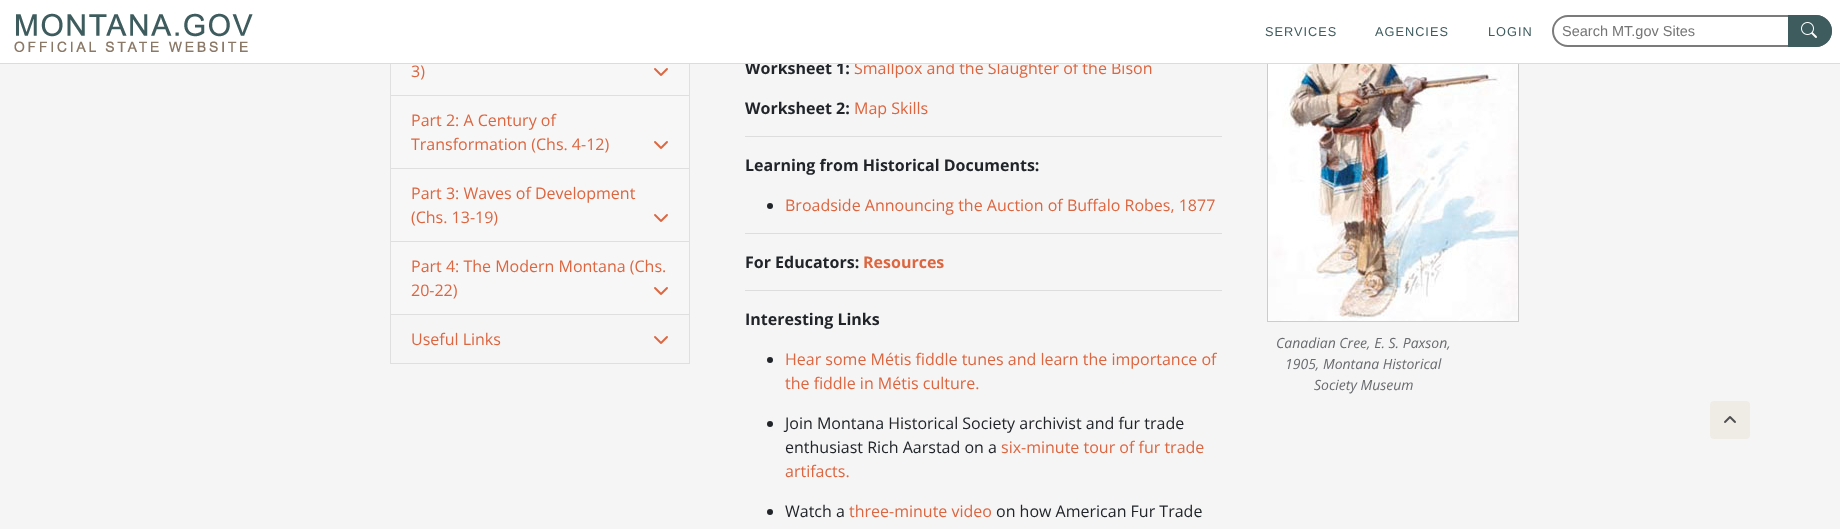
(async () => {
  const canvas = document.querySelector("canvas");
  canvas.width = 1840;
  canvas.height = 529;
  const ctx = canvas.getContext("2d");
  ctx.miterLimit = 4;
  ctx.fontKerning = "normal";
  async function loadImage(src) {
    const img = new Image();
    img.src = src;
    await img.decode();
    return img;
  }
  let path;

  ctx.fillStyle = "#f5f5f5";
  ctx.fillRect(0, 0, 1840, 529);
  ctx.fillStyle = "#ffffff";
  ctx.fillRect(390, 64, 300, 250);
  ctx.fillStyle = "rgba(0, 0, 0, 0.12)";
  path = new Path2D("M690 22V95H689V23Z");
  ctx.fill(path);
  path = new Path2D("M390 95V22L391 23V95Z");
  ctx.fill(path);
  ctx.fillStyle = "#f7f7f7";
  ctx.fillRect(391, 64, 298, 31);
  ctx.drawImage(await loadImage("img/3.png"), 654, 68, 14, 8);
  ctx.fillStyle = "#dfdfdf";
  path = new Path2D("M390 95H690L689 96H391Z");
  ctx.fill(path);
  ctx.fillStyle = "rgba(0, 0, 0, 0.12)";
  path = new Path2D("M690 95V168H689V96Z");
  ctx.fill(path);
  path = new Path2D("M390 168V95L391 96V168Z");
  ctx.fill(path);
  ctx.fillStyle = "#f7f7f7";
  ctx.fillRect(391, 96, 298, 72);
  ctx.drawImage(await loadImage("img/3.png"), 654, 141, 14, 8);
  ctx.fillStyle = "#dfdfdf";
  path = new Path2D("M390 168H690L689 169H391Z");
  ctx.fill(path);
  ctx.fillStyle = "rgba(0, 0, 0, 0.12)";
  path = new Path2D("M690 168V241H689V169Z");
  ctx.fill(path);
  path = new Path2D("M390 241V168L391 169V241Z");
  ctx.fill(path);
  ctx.fillStyle = "#f7f7f7";
  ctx.fillRect(391, 169, 298, 72);
  ctx.drawImage(await loadImage("img/3.png"), 654, 214, 14, 8);
  ctx.fillStyle = "#dfdfdf";
  path = new Path2D("M390 241H690L689 242H391Z");
  ctx.fill(path);
  ctx.fillStyle = "rgba(0, 0, 0, 0.12)";
  path = new Path2D("M690 241V314H689V242Z");
  ctx.fill(path);
  path = new Path2D("M390 314V241L391 242V314Z");
  ctx.fill(path);
  ctx.fillStyle = "#f7f7f7";
  ctx.fillRect(391, 242, 298, 72);
  ctx.drawImage(await loadImage("img/3.png"), 654, 287, 14, 8);
  ctx.strokeStyle = "#dfdfdf";
  ctx.strokeRect(390.5, 314.5, 299, 49);
  ctx.drawImage(await loadImage("img/3.png"), 654, 336, 14, 8);
  ctx.fillStyle = "#dddddd";
  ctx.fillRect(745, 136, 477, 1);
  ctx.fillStyle = "#212529";
  ctx.beginPath();
  ctx.arc(770, 206, 3, 0, Math.PI * 2);
  ctx.fill();
  ctx.fillStyle = "#dddddd";
  ctx.fillRect(745, 233, 477, 1);
  ctx.fillRect(745, 290, 477, 1);
  ctx.fillStyle = "#212529";
  ctx.beginPath();
  ctx.arc(770, 360, 3, 0, Math.PI * 2);
  ctx.fill();
  ctx.beginPath();
  ctx.arc(770, 424, 3, 0, Math.PI * 2);
  ctx.fill();
  ctx.beginPath();
  ctx.arc(770, 512, 3, 0, Math.PI * 2);
  ctx.fill();
  ctx.strokeStyle = "#cccccc";
  ctx.strokeRect(1267.5, -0.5, 251, 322);
  ctx.drawImage(await loadImage("img/4.png"), 1268, 64, 250, 257);
  ctx.fillStyle = "#efebe5";
  ctx.beginPath();
  ctx.roundRect(1710.5, 401.5, 39, 37, 3.5);
  ctx.fill();
  ctx.strokeStyle = "#efebe5";
  ctx.stroke();
  ctx.drawImage(await loadImage("img/5.png"), 1724, 416, 12, 7);
  ctx.font = "16px Open Sans";
  ctx.fillStyle = "#dc6640";
  for (const [text, x, y] of [
    ["3)", 411, 77],
    ["Part 2: A Century of", 411, 126],
    ["Transformation (Chs. 4-12)", 411, 150],
    ["Part 3: Waves of Development", 411, 199],
    ["(Chs. 13-19)", 411, 223],
    ["Part 4: The Modern Montana (Chs.", 411, 272],
    ["20-22)", 411, 296],
    ["Useful Links", 411, 345],
  ]) {
    ctx.fillText(text, x, y);
  }
  ctx.font = "bold 16px Open Sans";
  ctx.fillStyle = "#212529";
  ctx.fillText("Worksheet 1:", 745, 74);
  ctx.font = "16px Open Sans";
  ctx.fillStyle = "#dc6640";
  ctx.fillText("Smallpox and the Slaughter of the Bison", 854, 74);
  ctx.fillStyle = "#ffffff";
  ctx.fillRect(0, 0, 1840, 63);
  ctx.beginPath();
  ctx.roundRect(1553, 16, 278, 30, 15);
  ctx.strokeStyle = "#7b7b7b";
  ctx.lineWidth = 2;
  ctx.stroke();
  ctx.fillStyle = "#3e5c5e";
  ctx.beginPath();
  ctx.roundRect(1788, 15, 44, 32, [0, 16, 16, 0]);
  ctx.fill();
  ctx.drawImage(await loadImage("img/2.png"), 1801, 22, 16, 16);
  ctx.font = "14.5px Liberation Sans";
  ctx.fillStyle = "#757575";
  ctx.fillText("Search MT.gov Sites", 1562, 36);
  ctx.letterSpacing = "1px";
  ctx.font = "12.75px Liberation Sans";
  ctx.fillStyle = "#3e5b5d";
  for (const [text, x, y] of [
    ["LOGIN", 1488, 36],
    ["AGENCIES", 1375, 36],
    ["SERVICES", 1265, 36],
  ]) {
    ctx.fillText(text, x, y);
  }
  ctx.drawImage(await loadImage("img/1.png"), 14, 13, 239, 39);
  ctx.fillStyle = "#dbdcde";
  ctx.fillRect(0, 63, 1840, 1);
  ctx.letterSpacing = "0px";
  ctx.font = "bold 16px Open Sans";
  ctx.fillStyle = "#212529";
  ctx.fillText("Worksheet 2:", 745, 114);
  ctx.font = "16px Open Sans";
  ctx.fillStyle = "#dc6640";
  ctx.fillText("Map Skills", 854, 114);
  ctx.font = "bold 16px Open Sans";
  ctx.fillStyle = "#212529";
  ctx.fillText("Learning from Historical Documents:", 745, 171);
  ctx.font = "16px Open Sans";
  ctx.fillStyle = "#dc6640";
  ctx.fillText("Broadside Announcing the Auction of Buffalo Robes, 1877", 785, 211);
  ctx.font = "bold 16px Open Sans";
  ctx.fillStyle = "#212529";
  ctx.fillText("For Educators:", 745, 268);
  ctx.fillStyle = "#dc6640";
  ctx.fillText("Resources", 863, 268);
  ctx.fillStyle = "#212529";
  ctx.fillText("Interesting Links", 745, 325);
  ctx.font = "16px Open Sans";
  ctx.fillStyle = "#dc6640";
  ctx.fillText("Hear some Métis fiddle tunes and learn the importance of", 785, 365);
  ctx.fillText("the fiddle in Métis culture.", 785, 389);
  ctx.fillStyle = "#212529";
  ctx.fillText("Join Montana Historical Society archivist and fur trade", 785, 429);
  ctx.fillText("enthusiast Rich Aarstad on a", 785, 453);
  ctx.fillStyle = "#dc6640";
  ctx.fillText("six-minute tour of fur trade", 1001, 453);
  ctx.fillText("artifacts.", 785, 477);
  ctx.fillStyle = "#212529";
  ctx.fillText("Watch a", 785, 517);
  ctx.fillStyle = "#dc6640";
  ctx.fillText("three-minute video", 849, 517);
  ctx.fillStyle = "#212529";
  ctx.fillText("on how American Fur Trade", 996, 517);
  ctx.font = "italic 14px Open Sans";
  ctx.fillStyle = "#686a6d";
  for (const [text, x, y] of [
    ["Canadian Cree, E. S. Paxson,", 1276, 348],
    ["1905, Montana Historical", 1285, 369],
    ["Society Museum", 1314, 390],
  ]) {
    ctx.fillText(text, x, y);
  }
})();
